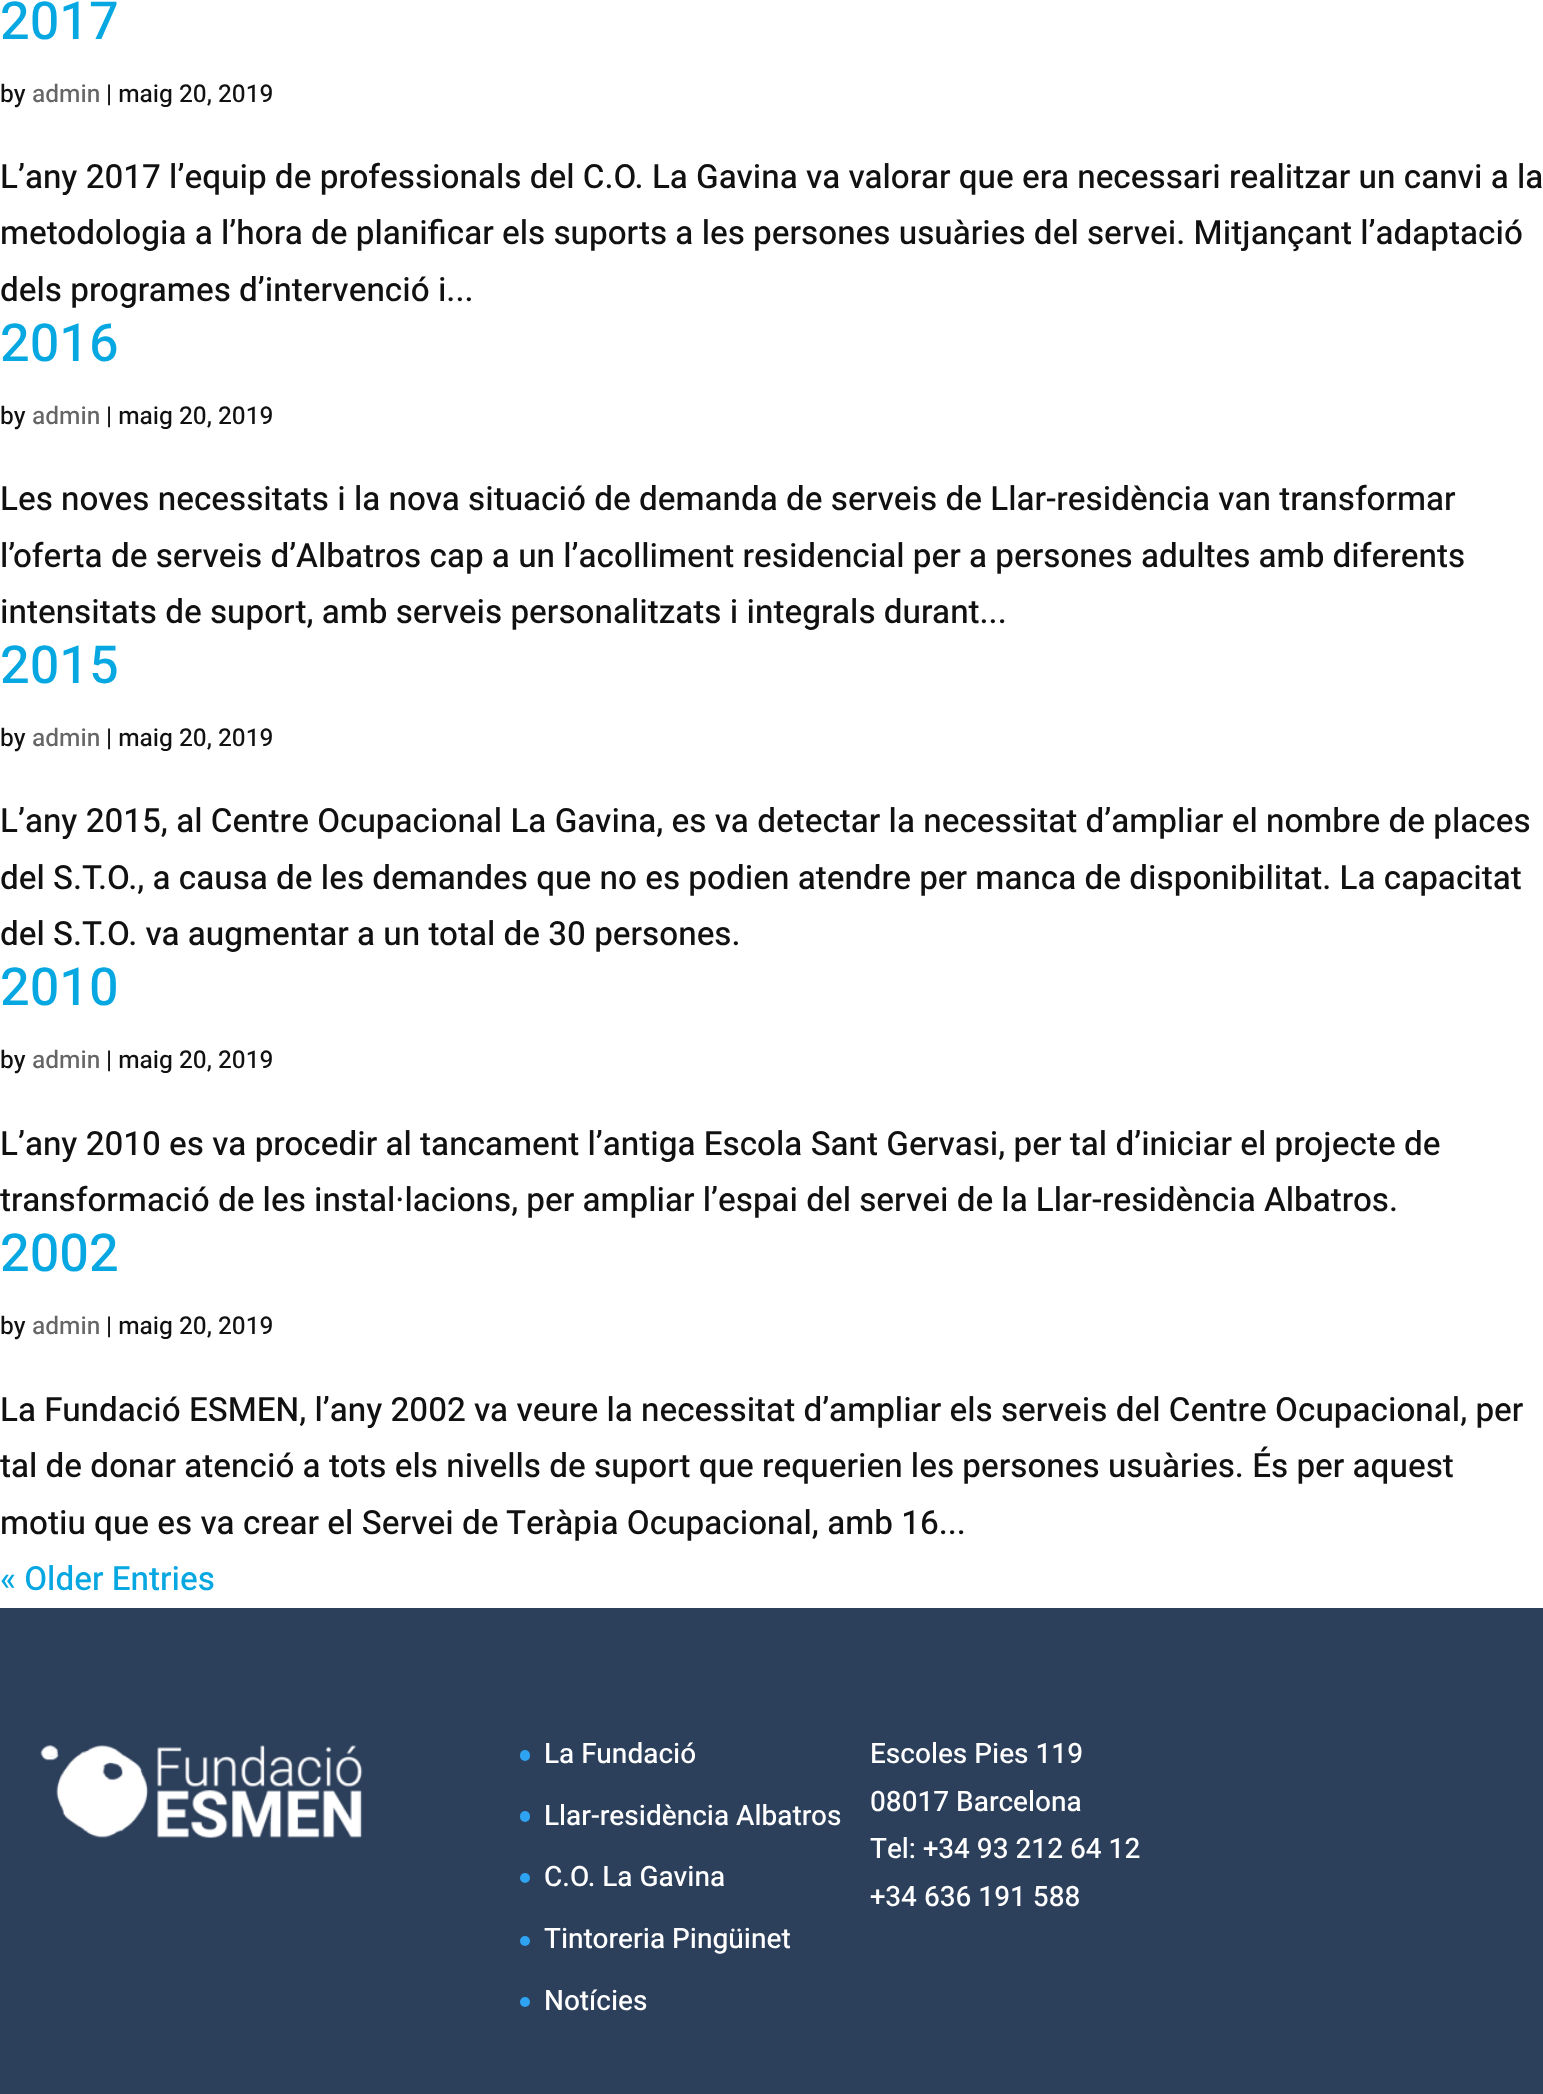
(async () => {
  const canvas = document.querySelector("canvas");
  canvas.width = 1543;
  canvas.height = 2094;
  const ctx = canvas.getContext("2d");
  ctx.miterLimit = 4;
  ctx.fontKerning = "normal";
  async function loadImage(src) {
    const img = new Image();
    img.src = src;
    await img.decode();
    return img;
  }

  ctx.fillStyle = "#ffffff";
  ctx.fillRect(0, 0, 1543, 2094);
  ctx.fillStyle = "#2c3f5b";
  ctx.fillRect(0, 1608, 1543, 486);
  ctx.drawImage(await loadImage("img/1.png"), 40, 1745, 323, 93);
  ctx.fillStyle = "#2ea3f2";
  ctx.beginPath();
  ctx.roundRect(520, 1750, 10, 11, 5);
  ctx.fill();
  ctx.beginPath();
  ctx.roundRect(520, 1811, 10, 11, 5);
  ctx.fill();
  ctx.beginPath();
  ctx.arc(525, 1878, 5, 0, Math.PI * 2);
  ctx.fill();
  ctx.beginPath();
  ctx.arc(525, 1941, 5, 0, Math.PI * 2);
  ctx.fill();
  ctx.beginPath();
  ctx.arc(525, 2002, 5, 0, Math.PI * 2);
  ctx.fill();
  ctx.font = "500 52.5px Heebo";
  ctx.fillStyle = "#07a7e1";
  ctx.fillText("2017", 0, 39);
  ctx.font = "500 24.5px Heebo";
  ctx.fillStyle = "#111111";
  ctx.fillText("by", 0, 102);
  ctx.fillStyle = "#666666";
  ctx.fillText("admin", 32, 102);
  ctx.fillStyle = "#111111";
  ctx.fillText("| maig 20, 2019", 106, 102);
  ctx.font = "500 33.25px Heebo";
  for (const [text, x, y] of [
    ["L’any 2017 l’equip de professionals del C.O. La Gavina va valorar que era necessari realitzar un canvi a la", 0, 188],
    ["metodologia a l’hora de planificar els suports a les persones usuàries del servei. Mitjançant l’adaptació", 0, 244],
    ["dels programes d’intervenció i...", 0, 301],
  ]) {
    ctx.fillText(text, x, y);
  }
  ctx.font = "500 52.5px Heebo";
  ctx.fillStyle = "#07a7e1";
  ctx.fillText("2016", 0, 361);
  ctx.font = "500 24.5px Heebo";
  ctx.fillStyle = "#111111";
  ctx.fillText("by", 0, 424);
  ctx.fillStyle = "#666666";
  ctx.fillText("admin", 32, 424);
  ctx.fillStyle = "#111111";
  ctx.fillText("| maig 20, 2019", 106, 424);
  ctx.font = "500 33.25px Heebo";
  for (const [text, x, y] of [
    ["Les noves necessitats i la nova situació de demanda de serveis de Llar-residència van transformar", 0, 510],
    ["l’oferta de serveis d’Albatros cap a un l’acolliment residencial per a persones adultes amb diferents", 0, 567],
    ["intensitats de suport, amb serveis personalitzats i integrals durant...", 0, 623],
  ]) {
    ctx.fillText(text, x, y);
  }
  ctx.font = "500 52.5px Heebo";
  ctx.fillStyle = "#07a7e1";
  ctx.fillText("2015", 0, 683);
  ctx.font = "500 24.5px Heebo";
  ctx.fillStyle = "#111111";
  ctx.fillText("by", 0, 746);
  ctx.fillStyle = "#666666";
  ctx.fillText("admin", 32, 746);
  ctx.fillStyle = "#111111";
  ctx.fillText("| maig 20, 2019", 106, 746);
  ctx.font = "500 33.25px Heebo";
  for (const [text, x, y] of [
    ["L’any 2015, al Centre Ocupacional La Gavina, es va detectar la necessitat d’ampliar el nombre de places", 0, 832],
    ["del S.T.O., a causa de les demandes que no es podien atendre per manca de disponibilitat. La capacitat", 0, 889],
    ["del S.T.O. va augmentar a un total de 30 persones.", 0, 945],
  ]) {
    ctx.fillText(text, x, y);
  }
  ctx.font = "500 52.5px Heebo";
  ctx.fillStyle = "#07a7e1";
  ctx.fillText("2010", 0, 1005);
  ctx.font = "500 24.5px Heebo";
  ctx.fillStyle = "#111111";
  ctx.fillText("by", 0, 1068);
  ctx.fillStyle = "#666666";
  ctx.fillText("admin", 32, 1068);
  ctx.fillStyle = "#111111";
  ctx.fillText("| maig 20, 2019", 106, 1068);
  ctx.font = "500 33.25px Heebo";
  ctx.fillText("L’any 2010 es va procedir al tancament l’antiga Escola Sant Gervasi, per tal d’iniciar el projecte de", 0, 1155);
  ctx.wordSpacing = "-0.1px";
  ctx.fillText("transformació de les instal·lacions, per ampliar l’espai del servei de la Llar-residència Albatros.", 0, 1211);
  ctx.wordSpacing = "0px";
  ctx.font = "500 52.5px Heebo";
  ctx.fillStyle = "#07a7e1";
  ctx.fillText("2002", 0, 1271);
  ctx.font = "500 24.5px Heebo";
  ctx.fillStyle = "#111111";
  ctx.fillText("by", 0, 1334);
  ctx.fillStyle = "#666666";
  ctx.fillText("admin", 32, 1334);
  ctx.fillStyle = "#111111";
  ctx.fillText("| maig 20, 2019", 106, 1334);
  ctx.font = "500 33.25px Heebo";
  for (const [text, x, y] of [
    ["La Fundació ESMEN, l’any 2002 va veure la necessitat d’ampliar els serveis del Centre Ocupacional, per", 0, 1421],
    ["tal de donar atenció a tots els nivells de suport que requerien les persones usuàries. És per aquest", 0, 1477],
    ["motiu que es va crear el Servei de Teràpia Ocupacional, amb 16...", 0, 1534],
  ]) {
    ctx.fillText(text, x, y);
  }
  ctx.fillStyle = "#07a7e1";
  ctx.fillText("« Older Entries", 0, 1590);
  ctx.font = "500 28px Heebo";
  ctx.fillStyle = "#ffffff";
  for (const [text, x, y] of [
    ["La Fundació", 544, 1763],
    ["Llar-residència Albatros", 544, 1825],
    ["C.O. La Gavina", 544, 1886],
    ["Tintoreria Pingüinet", 544, 1948],
    ["Notícies", 544, 2010],
    ["Escoles Pies 119", 870, 1763],
    ["08017 Barcelona", 870, 1811],
    ["Tel: +34 93 212 64 12", 870, 1858],
    ["+34 636 191 588", 870, 1906],
  ]) {
    ctx.fillText(text, x, y);
  }
})();
